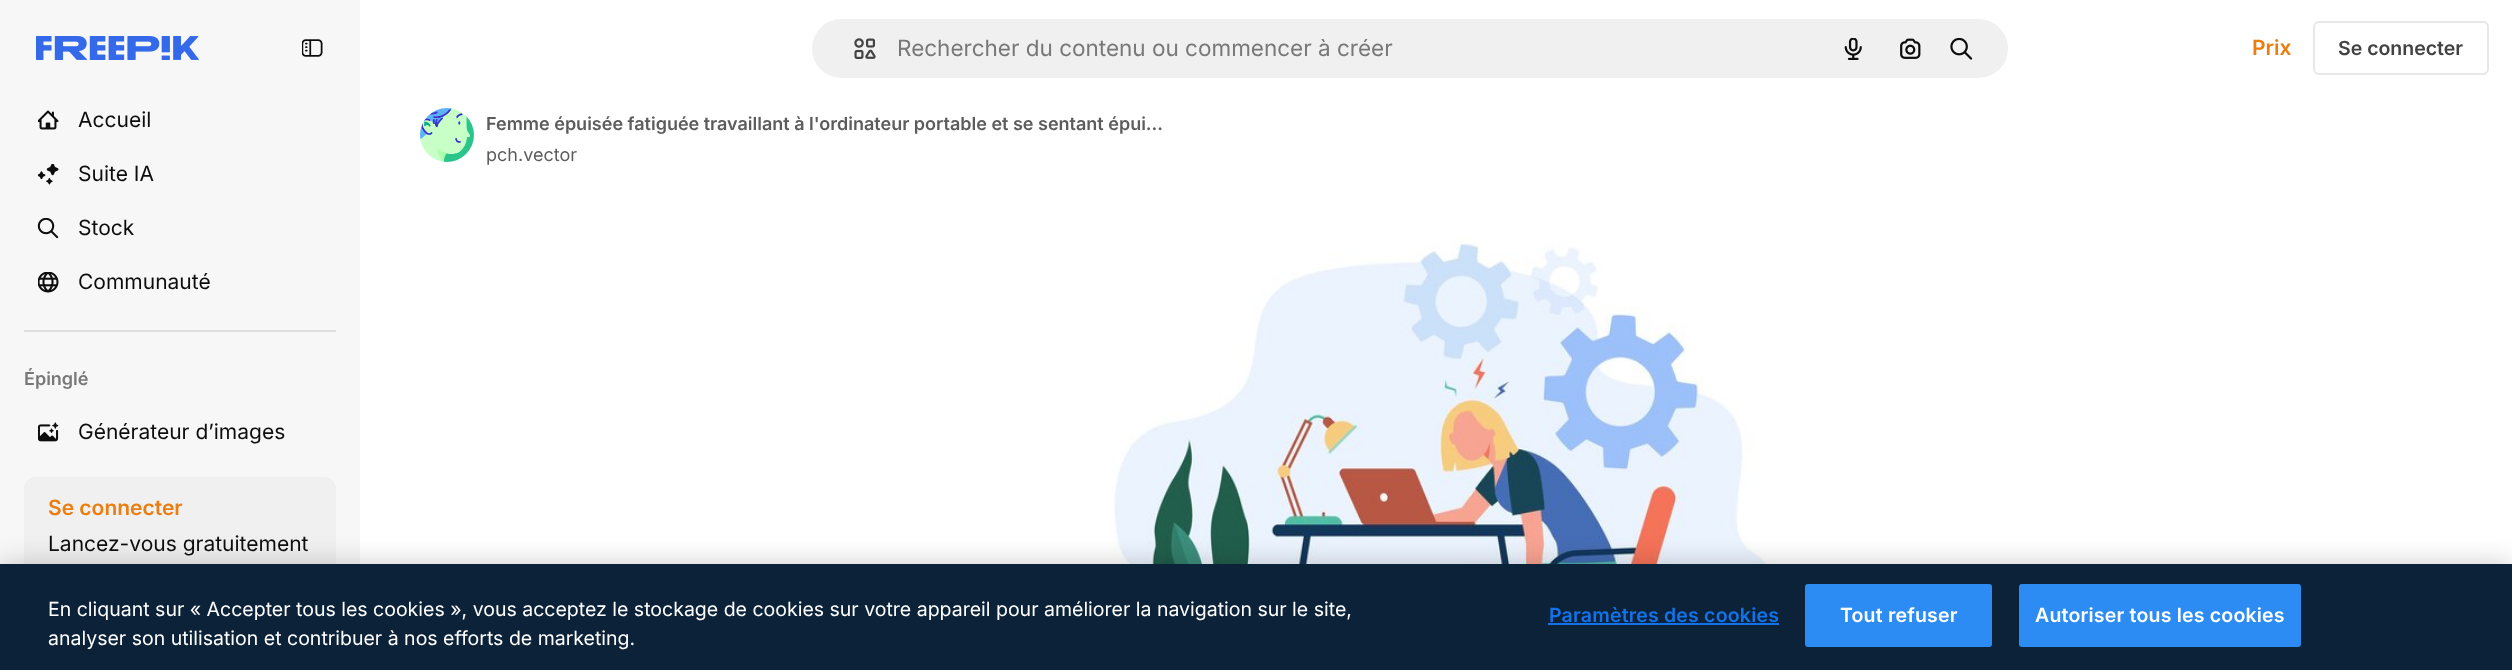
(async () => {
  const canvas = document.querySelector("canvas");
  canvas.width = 2512;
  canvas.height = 670;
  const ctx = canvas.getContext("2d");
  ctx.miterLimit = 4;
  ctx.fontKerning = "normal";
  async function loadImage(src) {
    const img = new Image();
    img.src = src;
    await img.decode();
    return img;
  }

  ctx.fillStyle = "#ffffff";
  ctx.fillRect(0, 0, 2512, 670);
  ctx.fillStyle = "#f7f7f7";
  ctx.fillRect(0, 0, 360, 564);
  ctx.drawImage(await loadImage("img/1.png"), 36, 36, 163, 24);
  ctx.drawImage(await loadImage("img/2.png"), 302, 39, 21, 18);
  ctx.drawImage(await loadImage("img/3.png"), 38, 110, 21, 20);
  ctx.drawImage(await loadImage("img/4.png"), 38, 164, 21, 21);
  ctx.drawImage(await loadImage("img/5.png"), 37, 218, 22, 21);
  ctx.drawImage(await loadImage("img/6.png"), 38, 272, 21, 21);
  ctx.fillStyle = "#e0e0e0";
  ctx.fillRect(24, 330, 312, 2);
  ctx.drawImage(await loadImage("img/7.png"), 38, 422, 21, 20);
  ctx.fillStyle = "#f0f0f0";
  ctx.beginPath();
  ctx.roundRect(24, 477, 312, 98, 12);
  ctx.fill();
  ctx.beginPath();
  ctx.roundRect(811, 18, 1198, 61, 30.5);
  ctx.fill();
  ctx.strokeStyle = "#ffffff";
  ctx.lineWidth = 2;
  ctx.stroke();
  ctx.drawImage(await loadImage("img/8.png"), 854, 38, 22, 21);
  ctx.drawImage(await loadImage("img/9.png"), 1844, 38, 18, 22);
  ctx.drawImage(await loadImage("img/10.png"), 1900, 38, 21, 21);
  ctx.drawImage(await loadImage("img/11.png"), 1950, 38, 23, 22);
  ctx.beginPath();
  ctx.roundRect(2314, 22, 174, 52, 5);
  ctx.strokeStyle = "#e7e7e7";
  ctx.stroke();
  ctx.drawImage(await loadImage("img/12.png"), 420, 108, 54, 54);
  ctx.drawImage(await loadImage("img/13.png"), 1082, 237, 719, 327);
  ctx.fillStyle = "rgba(0, 0, 0, 0.2)";
  ctx.filter = "blur(13.5px)";
  ctx.beginPath();
  ctx.rect(0, 564, 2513, 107);
  ctx.fill();
  ctx.filter = "none";
  ctx.fillStyle = "#0b2239";
  ctx.fillRect(0, 564, 2512, 106);
  ctx.fillStyle = "#1273eb";
  ctx.fillRect(1548, 623, 231, 2);
  ctx.fillStyle = "#2c8cf4";
  ctx.beginPath();
  ctx.roundRect(1806, 585, 185, 61, 2);
  ctx.fill();
  ctx.strokeStyle = "#2c8cf4";
  ctx.stroke();
  ctx.beginPath();
  ctx.roundRect(2020, 585, 280, 61, 2);
  ctx.fill();
  ctx.stroke();
  ctx.font = "21px Inter";
  ctx.fillStyle = "#0d0d0d";
  for (const [text, x, y] of [
    ["Accueil", 78, 127],
    ["Suite IA", 78, 181],
    ["Stock", 78, 235],
    ["Communauté", 78, 289],
  ]) {
    ctx.fillText(text, x, y);
  }
  ctx.font = "600 18px Inter";
  ctx.fillStyle = "#787878";
  ctx.fillText("Épinglé", 24, 385);
  ctx.font = "21px Inter";
  ctx.fillStyle = "#0d0d0d";
  ctx.fillText("Générateur d’images", 78, 439);
  ctx.font = "600 21px Inter";
  ctx.fillStyle = "#ea7e11";
  ctx.fillText("Se connecter", 48, 515);
  ctx.font = "21px Inter";
  ctx.fillStyle = "#0d0d0d";
  ctx.fillText("Lancez-vous gratuitement", 48, 551);
  ctx.font = "22.5px Inter";
  ctx.fillStyle = "#787878";
  ctx.fillText("Rechercher du contenu ou commencer à créer", 897, 56);
  ctx.font = "600 21px Inter";
  ctx.fillStyle = "#ea7e11";
  ctx.fillText("Prix", 2252, 55);
  ctx.font = "600 19.5px Inter";
  ctx.fillStyle = "#424242";
  ctx.fillText("Se connecter", 2338, 55);
  ctx.font = "600 18px Inter";
  ctx.fillStyle = "#5c5c5c";
  ctx.fillText("Femme épuisée fatiguée travaillant à l'ordinateur portable et se sentant épui…", 486, 130);
  ctx.font = "18px Inter";
  ctx.fillText("pch.vector", 486, 161);
  ctx.font = "19.5px Inter";
  ctx.fillStyle = "#ffffff";
  ctx.fillText("En cliquant sur « Accepter tous les cookies », vous acceptez le stockage de cookies sur votre appareil pour améliorer la navigation sur le site,", 48, 616);
  ctx.fillText("analyser son utilisation et contribuer à nos efforts de marketing.", 48, 645);
  ctx.letterSpacing = "0.2px";
  ctx.font = "600 19.5px Inter";
  ctx.fillStyle = "#1273eb";
  ctx.fillText("Paramètres des cookies", 1549, 622);
  ctx.fillStyle = "#ffffff";
  ctx.fillText("Tout refuser", 1840, 622);
  ctx.fillText("Autoriser tous les cookies", 2035, 622);
})();
